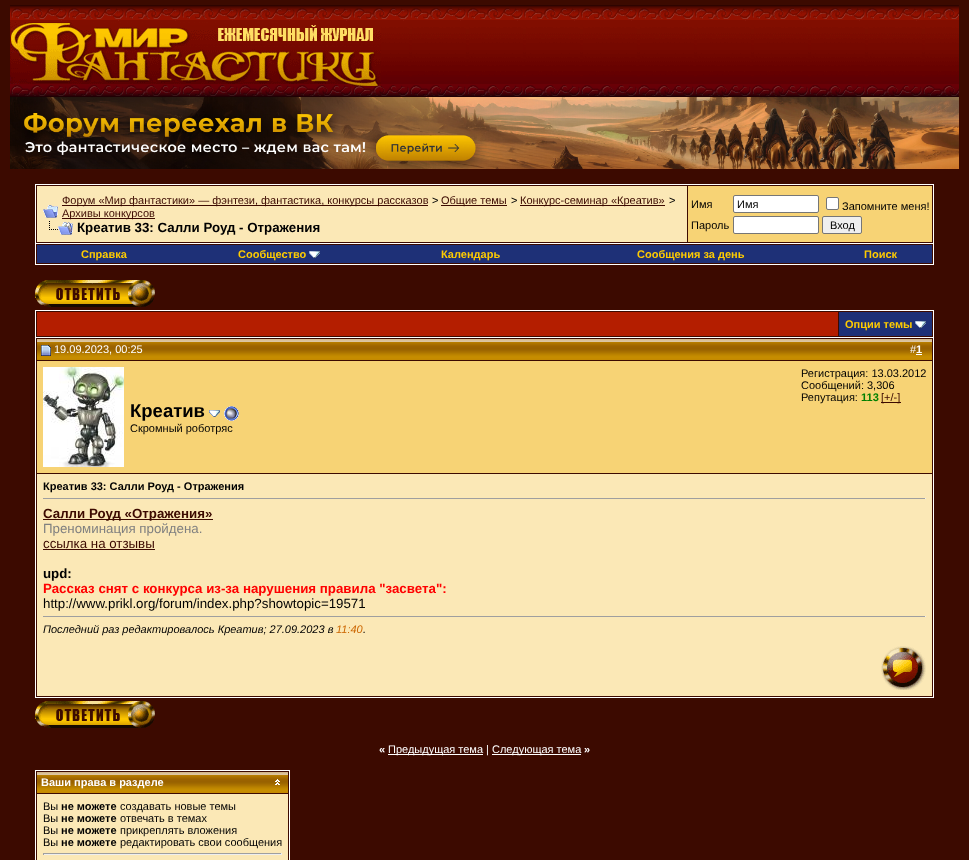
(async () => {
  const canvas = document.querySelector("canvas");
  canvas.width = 969;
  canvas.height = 860;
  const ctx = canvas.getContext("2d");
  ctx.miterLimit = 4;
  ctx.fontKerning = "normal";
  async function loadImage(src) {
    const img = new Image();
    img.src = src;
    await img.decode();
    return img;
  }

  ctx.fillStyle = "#3c0a00";
  ctx.fillRect(0, 0, 969, 860);
  ctx.drawImage(await loadImage("img/1.png"), 10, 5, 949, 92);
  ctx.drawImage(await loadImage("img/2.png"), 10, 22, 371, 64);
  ctx.drawImage(await loadImage("img/3.png"), 10, 97, 949, 72);
  ctx.strokeStyle = "#ffffff";
  ctx.strokeRect(35.5, 184.5, 898, 59);
  ctx.fillStyle = "#fbe8b6";
  ctx.fillRect(37, 186, 650, 56);
  ctx.drawImage(await loadImage("img/4.png"), 43, 205, 15, 13);
  for (const [x, y, w, h, color] of [
    [62, 205, 366, 1, "#3c0a00"],
    [441, 205, 66, 1, "#3c0a00"],
    [520, 205, 145, 1, "#3c0a00"],
    [62, 218, 93, 1, "#3c0a00"],
  ]) {
    ctx.fillStyle = color;
    ctx.fillRect(x, y, w, h);
  }
  ctx.drawImage(await loadImage("img/5.png"), 49, 221, 24, 14);
  ctx.fillStyle = "#f7d375";
  ctx.fillRect(688, 186, 244, 56);
  ctx.fillStyle = "#ffffff";
  ctx.beginPath();
  ctx.roundRect(733.5, 195.5, 85, 17, 1.5);
  ctx.fill();
  ctx.strokeStyle = "#767676";
  ctx.stroke();
  ctx.beginPath();
  ctx.roundRect(826.5, 197.5, 12, 12, 1.5);
  ctx.fill();
  ctx.stroke();
  ctx.beginPath();
  ctx.roundRect(733.5, 216.5, 85, 17, 1.5);
  ctx.fill();
  ctx.stroke();
  ctx.fillStyle = "#efefef";
  ctx.beginPath();
  ctx.roundRect(822.5, 216.5, 39, 17, 1.5);
  ctx.fill();
  ctx.stroke();
  for (const [x, y, w, h, color] of [
    [933, 244, 1, 21, "#ffffff"],
    [35, 264, 899, 1, "#ffffff"],
    [35, 244, 1, 21, "#ffffff"],
    [37, 245, 895, 18, "#1e3077"],
  ]) {
    ctx.fillStyle = color;
    ctx.fillRect(x, y, w, h);
  }
  ctx.drawImage(await loadImage("img/6.png"), 309, 251, 11, 7);
  ctx.drawImage(await loadImage("img/7.png"), 35, 280, 120, 27);
  for (const [x, y, w, h, color] of [
    [35, 310, 899, 1, "#ffffff"],
    [933, 310, 1, 27, "#ffffff"],
    [35, 310, 1, 27, "#ffffff"],
    [37, 312, 801, 24, "#b41e00"],
    [839, 312, 93, 24, "#1e3077"],
  ]) {
    ctx.fillStyle = color;
    ctx.fillRect(x, y, w, h);
  }
  ctx.drawImage(await loadImage("img/6.png"), 915, 321, 11, 7);
  ctx.strokeStyle = "#ffffff";
  ctx.strokeRect(35.5, 337.5, 898, 360);
  ctx.drawImage(await loadImage("img/8.png"), 37, 339, 895, 21);
  ctx.drawImage(await loadImage("img/9.png"), 41, 345, 10, 11);
  ctx.fillStyle = "#ffffff";
  ctx.fillRect(916, 354, 6, 1);
  ctx.fillStyle = "#f7d375";
  ctx.fillRect(37, 361, 895, 112);
  ctx.drawImage(await loadImage("img/10.png"), 43, 367, 81, 100);
  ctx.fillStyle = "#3c0a00";
  ctx.fillRect(881, 402, 20, 1);
  ctx.drawImage(await loadImage("img/11.png"), 209, 410, 11, 7);
  ctx.drawImage(await loadImage("img/12.png"), 224, 406, 15, 15);
  for (const [x, y, w, h, color] of [
    [37, 474, 895, 222, "#fbe8b6"],
    [43, 498, 883, 1, "#9f9f9f"],
    [925, 498, 1, 1, "#eeeeee"],
    [43, 519, 170, 1, "#3c0a00"],
    [43, 549, 112, 1, "#3c0a00"],
    [43, 616, 883, 1, "#9f9f9f"],
    [925, 616, 1, 1, "#eeeeee"],
  ]) {
    ctx.fillStyle = color;
    ctx.fillRect(x, y, w, h);
  }
  ctx.drawImage(await loadImage("img/13.png"), 881, 646, 45, 44);
  ctx.drawImage(await loadImage("img/7.png"), 35, 701, 120, 27);
  ctx.fillStyle = "#ffffff";
  ctx.fillRect(388, 754, 95, 1);
  ctx.fillRect(492, 754, 89, 1);
  ctx.strokeRect(35.5, 770.5, 254, 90);
  ctx.drawImage(await loadImage("img/14.png"), 37, 772, 251, 21);
  ctx.drawImage(await loadImage("img/15.png"), 275, 779, 5, 6);
  for (const [x, y, w, h, color] of [
    [37, 794, 251, 66, "#fbe8b6"],
    [43, 853, 239, 1, "#9f9f9f"],
    [281, 853, 1, 2, "#eeeeee"],
    [43, 854, 239, 1, "#eeeeee"],
    [43, 853, 1, 2, "#9f9f9f"],
  ]) {
    ctx.fillStyle = color;
    ctx.fillRect(x, y, w, h);
  }
  ctx.font = "11px Liberation Sans";
  ctx.fillStyle = "#3c0a00";
  ctx.fillText("Форум «Мир фантастики» — фэнтези, фантастика, конкурсы рассказов", 62, 204);
  ctx.fillStyle = "#000000";
  ctx.fillText(">", 432, 204);
  ctx.fillStyle = "#3c0a00";
  ctx.fillText("Общие темы", 441, 204);
  ctx.fillStyle = "#000000";
  ctx.fillText(">", 511, 204);
  ctx.fillStyle = "#3c0a00";
  ctx.fillText("Конкурс-семинар «Креатив»", 520, 204);
  ctx.fillStyle = "#000000";
  ctx.fillText(">", 669, 204);
  ctx.fillStyle = "#3c0a00";
  ctx.fillText("Архивы конкурсов", 62, 217);
  ctx.font = "bold 13.3px Liberation Sans";
  ctx.fillStyle = "#000000";
  ctx.fillText("Креатив 33: Салли Роуд - Отражения", 77, 232);
  ctx.font = "11px Liberation Sans";
  for (const [text, x, y] of [
    ["Имя", 691, 208],
    ["Имя", 737, 208],
    ["Запомните меня!", 842, 210],
    ["Пароль", 691, 229],
    ["Вход", 830, 229],
  ]) {
    ctx.fillText(text, x, y);
  }
  ctx.font = "bold 11px Liberation Sans";
  ctx.fillStyle = "#ffcc00";
  for (const [text, x, y] of [
    ["Справка", 81, 258],
    ["Сообщество", 238, 258],
    ["Календарь", 441, 258],
    ["Сообщения за день", 637, 258],
    ["Поиск", 864, 258],
    ["Опции темы", 845, 328],
  ]) {
    ctx.fillText(text, x, y);
  }
  ctx.font = "11px Liberation Sans";
  ctx.fillStyle = "#ffffff";
  ctx.fillText("19.09.2023, 00:25", 54, 353);
  ctx.fillText("#", 910, 353);
  ctx.font = "bold 11px Liberation Sans";
  ctx.fillText("1", 916, 353);
  ctx.font = "11px Liberation Sans";
  ctx.fillStyle = "#000000";
  for (const [text, x, y] of [
    ["Регистрация: 13.03.2012", 801, 377],
    ["Сообщений: 3,306", 801, 389],
    ["Репутация:", 801, 401],
  ]) {
    ctx.fillText(text, x, y);
  }
  ctx.font = "bold 11px Liberation Sans";
  ctx.fillStyle = "#008000";
  ctx.fillText("113", 861, 401);
  ctx.font = "11px Liberation Sans";
  ctx.fillStyle = "#3c0a00";
  ctx.fillText("[+/-]", 881, 401);
  ctx.font = "bold 18.5px Liberation Sans";
  ctx.fillStyle = "#000000";
  ctx.fillText("Креатив", 130, 417);
  ctx.font = "11px Liberation Sans";
  ctx.fillText("Скромный роботряс", 130, 432);
  ctx.font = "bold 11px Liberation Sans";
  ctx.fillText("Креатив 33: Салли Роуд - Отражения", 43, 490);
  ctx.font = "bold 13.3px Liberation Sans";
  ctx.fillStyle = "#3c0a00";
  ctx.fillText("Салли Роуд «Отражения»", 43, 518);
  ctx.font = "13.3px Liberation Sans";
  ctx.fillStyle = "#808080";
  ctx.fillText("Преноминация пройдена.", 43, 533);
  ctx.fillStyle = "#3c0a00";
  ctx.fillText("ссылка на отзывы", 43, 548);
  ctx.font = "bold 13.3px Liberation Sans";
  ctx.fillStyle = "#000000";
  ctx.fillText("upd:", 43, 578);
  ctx.fillStyle = "#ff0000";
  ctx.fillText("Рассказ снят с конкурса из-за нарушения правила \"засвета\":", 43, 593);
  ctx.font = "13.3px Liberation Sans";
  ctx.fillStyle = "#000000";
  ctx.fillText("http://www.prikl.org/forum/index.php?showtopic=19571", 43, 608);
  ctx.font = "italic 11px Liberation Sans";
  ctx.fillText("Последний раз редактировалось Креатив; 27.09.2023 в", 43, 633);
  ctx.fillStyle = "#cc6600";
  ctx.fillText("11:40", 336, 633);
  ctx.fillStyle = "#000000";
  ctx.fillText(".", 363, 633);
  ctx.font = "bold 11px Liberation Sans";
  ctx.fillStyle = "#ffffff";
  ctx.fillText("«", 379, 753);
  ctx.font = "11px Liberation Sans";
  ctx.fillText("Предыдущая тема |", 388, 753);
  ctx.fillText("Следующая тема", 492, 753);
  ctx.font = "bold 11px Liberation Sans";
  ctx.fillText("»", 584, 753);
  ctx.fillText("Ваши права в разделе", 41, 786);
  ctx.font = "11px Liberation Sans";
  ctx.fillStyle = "#000000";
  ctx.fillText("Вы", 43, 810);
  ctx.font = "bold 11px Liberation Sans";
  ctx.fillText("не можете", 61, 810);
  ctx.font = "11px Liberation Sans";
  ctx.fillText("создавать новые темы", 120, 810);
  ctx.fillText("Вы", 43, 822);
  ctx.font = "bold 11px Liberation Sans";
  ctx.fillText("не можете", 61, 822);
  ctx.font = "11px Liberation Sans";
  ctx.fillText("отвечать в темах", 120, 822);
  ctx.fillText("Вы", 43, 834);
  ctx.font = "bold 11px Liberation Sans";
  ctx.fillText("не можете", 61, 834);
  ctx.font = "11px Liberation Sans";
  ctx.fillText("прикреплять вложения", 120, 834);
  ctx.fillText("Вы", 43, 846);
  ctx.font = "bold 11px Liberation Sans";
  ctx.fillText("не можете", 61, 846);
  ctx.font = "11px Liberation Sans";
  ctx.fillText("редактировать свои сообщения", 120, 846);
})();
